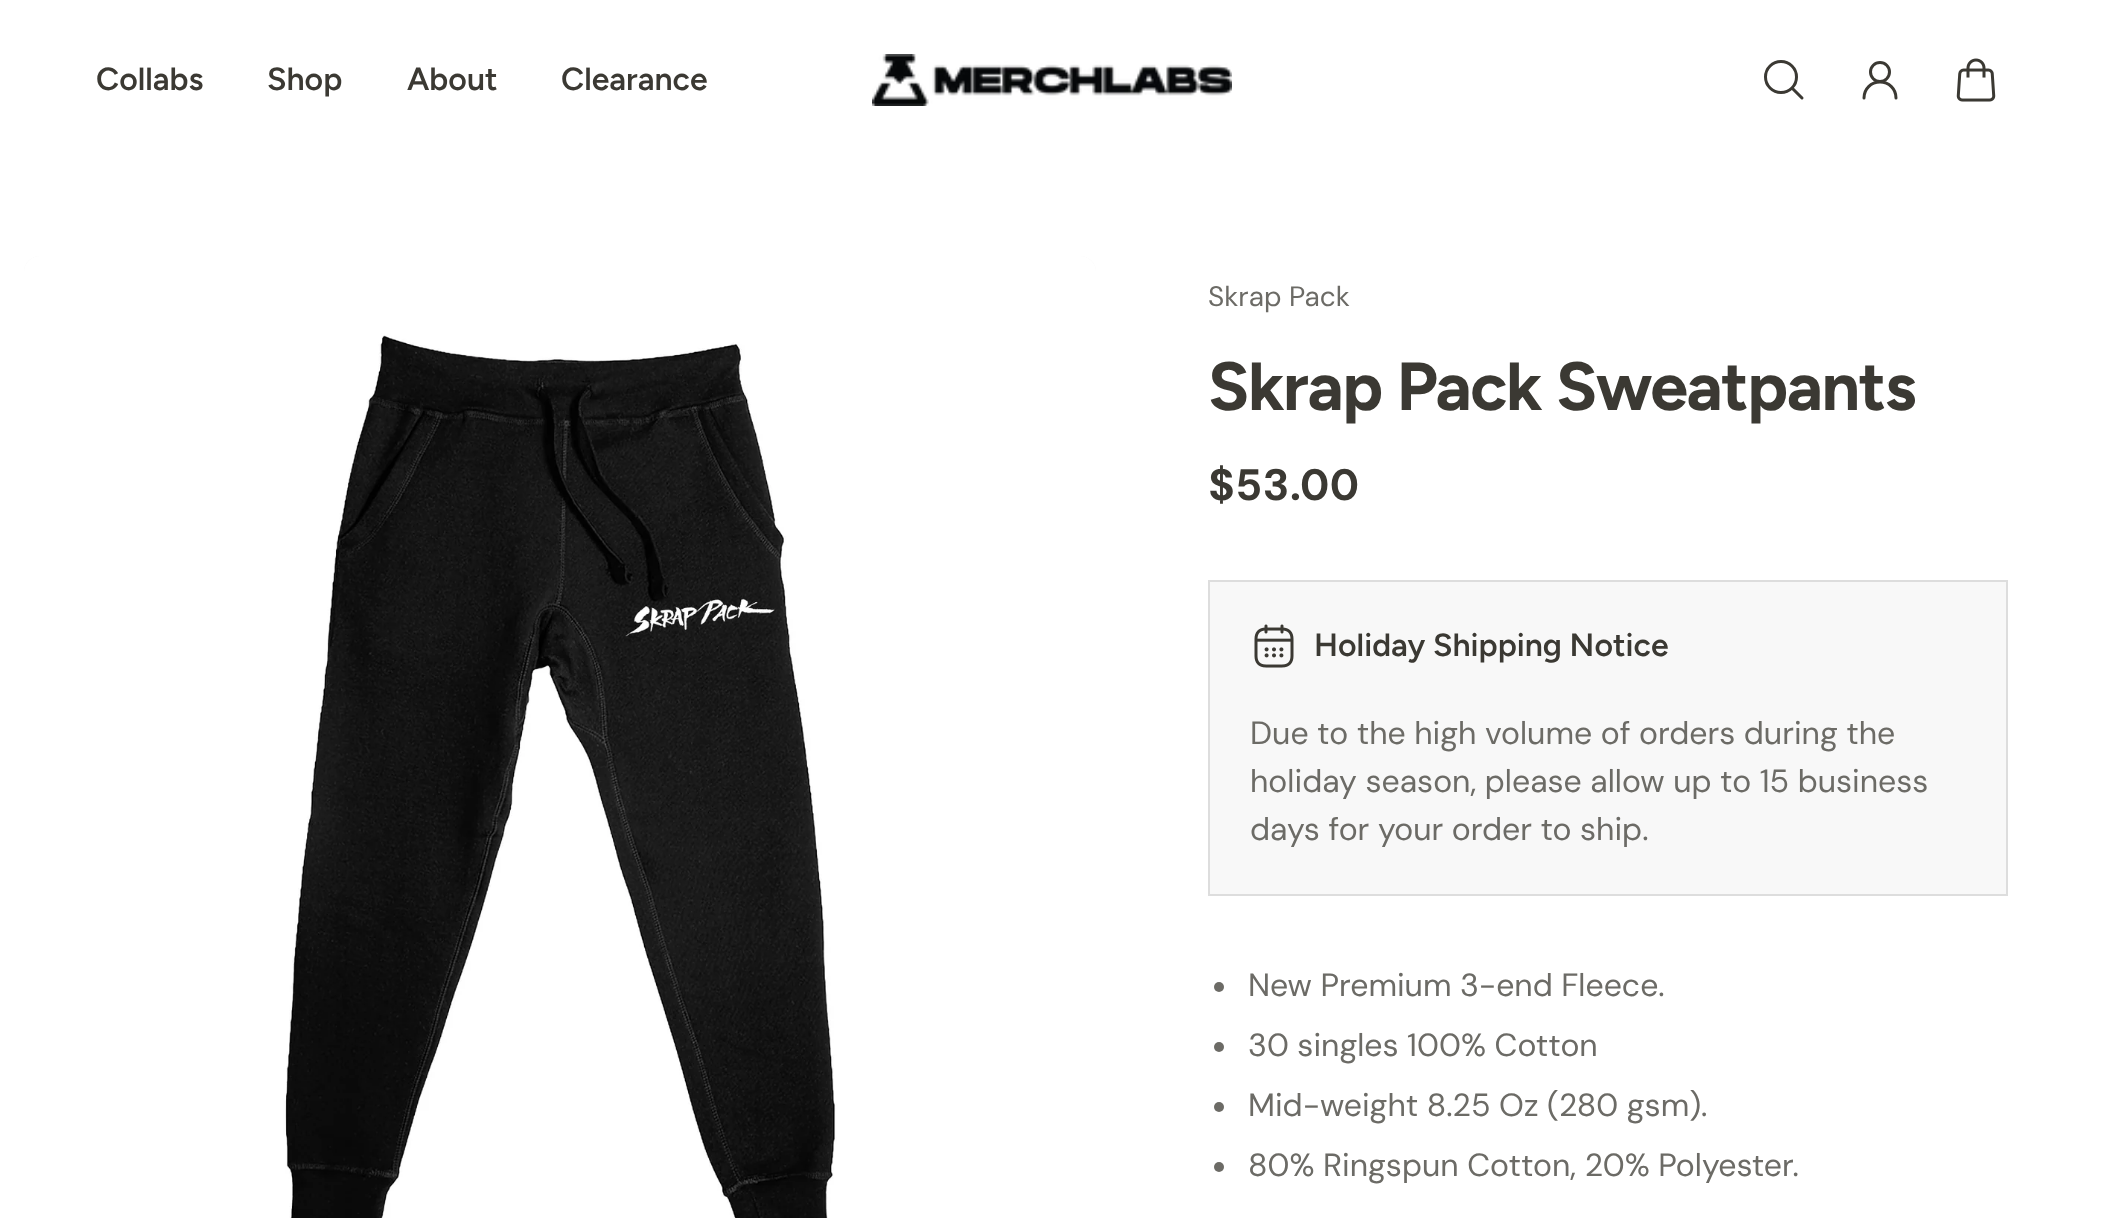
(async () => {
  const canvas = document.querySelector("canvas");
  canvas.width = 2104;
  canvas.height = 1218;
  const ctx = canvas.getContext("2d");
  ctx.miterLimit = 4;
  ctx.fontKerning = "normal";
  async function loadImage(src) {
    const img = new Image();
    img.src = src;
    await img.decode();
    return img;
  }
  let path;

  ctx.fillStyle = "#ffffff";
  ctx.fillRect(0, 0, 2104, 1218);
  ctx.drawImage(await loadImage("img/1.png"), 872, 54, 360, 52);
  ctx.beginPath();
  ctx.arc(1781, 77, 15.5, 0, Math.PI * 2);
  ctx.strokeStyle = "#3b3933";
  ctx.lineWidth = 3;
  ctx.stroke();
  path = new Path2D("M1792.5 88.5L1802 98");
  ctx.lineCap = "round";
  ctx.lineJoin = "round";
  ctx.stroke(path);
  ctx.beginPath();
  ctx.arc(1880, 72, 9.5, 0, Math.PI * 2);
  ctx.stroke();
  path = new Path2D("M1896 98C1896 89 1889 82 1880 82C1871 82 1864 89 1864 98");
  ctx.stroke(path);
  ctx.drawImage(await loadImage("img/2.png"), 1956, 58, 40, 44);
  ctx.fillStyle = "#f5f5f5";
  ctx.beginPath();
  ctx.roundRect(24, 256, 1072, 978, 16);
  ctx.fill();
  ctx.drawImage(await loadImage("img/3.png"), 24, 256, 1072, 962);
  ctx.fillStyle = "#f8f8f8";
  ctx.beginPath();
  ctx.rect(1209, 581, 798, 314);
  ctx.fill();
  ctx.strokeStyle = "#dddddd";
  ctx.lineWidth = 2;
  ctx.lineJoin = "miter";
  ctx.stroke();
  ctx.drawImage(await loadImage("img/4.png"), 1254, 624, 40, 44);
  ctx.fillStyle = "#6c6b66";
  ctx.beginPath();
  ctx.arc(1219, 987, 5, 0, Math.PI * 2);
  ctx.fill();
  ctx.beginPath();
  ctx.arc(1219, 1047, 5, 0, Math.PI * 2);
  ctx.fill();
  ctx.beginPath();
  ctx.arc(1219, 1107, 5, 0, Math.PI * 2);
  ctx.fill();
  ctx.beginPath();
  ctx.arc(1219, 1167, 5, 0, Math.PI * 2);
  ctx.fill();
  ctx.font = "600 32px Figtree";
  ctx.fillStyle = "#3b3933";
  for (const [text, x, y] of [
    ["Collabs", 96, 90],
    ["Shop", 267, 90],
    ["About", 407, 90],
    ["Clearance", 561, 90],
  ]) {
    ctx.fillText(text, x, y);
  }
  ctx.font = "28px DM Sans";
  ctx.fillStyle = "#6c6b66";
  ctx.fillText("Skrap Pack", 1208, 306);
  ctx.letterSpacing = "-1.4px";
  ctx.font = "bold 68px Figtree";
  ctx.fillStyle = "#3b3933";
  ctx.fillText("Skrap Pack Sweatpants", 1208, 410);
  ctx.letterSpacing = "0px";
  ctx.font = "bold 44px DM Sans";
  ctx.fillText("$53.00", 1208, 500);
  ctx.font = "600 32px Figtree";
  ctx.fillText("Holiday Shipping Notice", 1314, 656);
  ctx.font = "32px 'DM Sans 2'";
  ctx.fillStyle = "#6c6b66";
  for (const [text, x, y] of [
    ["Due to the high volume of orders during the", 1250, 744],
    ["holiday season, please allow up to 15 business", 1250, 792],
    ["days for your order to ship.", 1250, 840],
    ["New Premium 3-end Fleece.", 1248, 996],
    ["30 singles 100% Cotton", 1248, 1056],
    ["Mid-weight 8.25 Oz (280 gsm).", 1248, 1116],
    ["80% Ringspun Cotton, 20% Polyester.", 1248, 1176],
  ]) {
    ctx.fillText(text, x, y);
  }
})();
